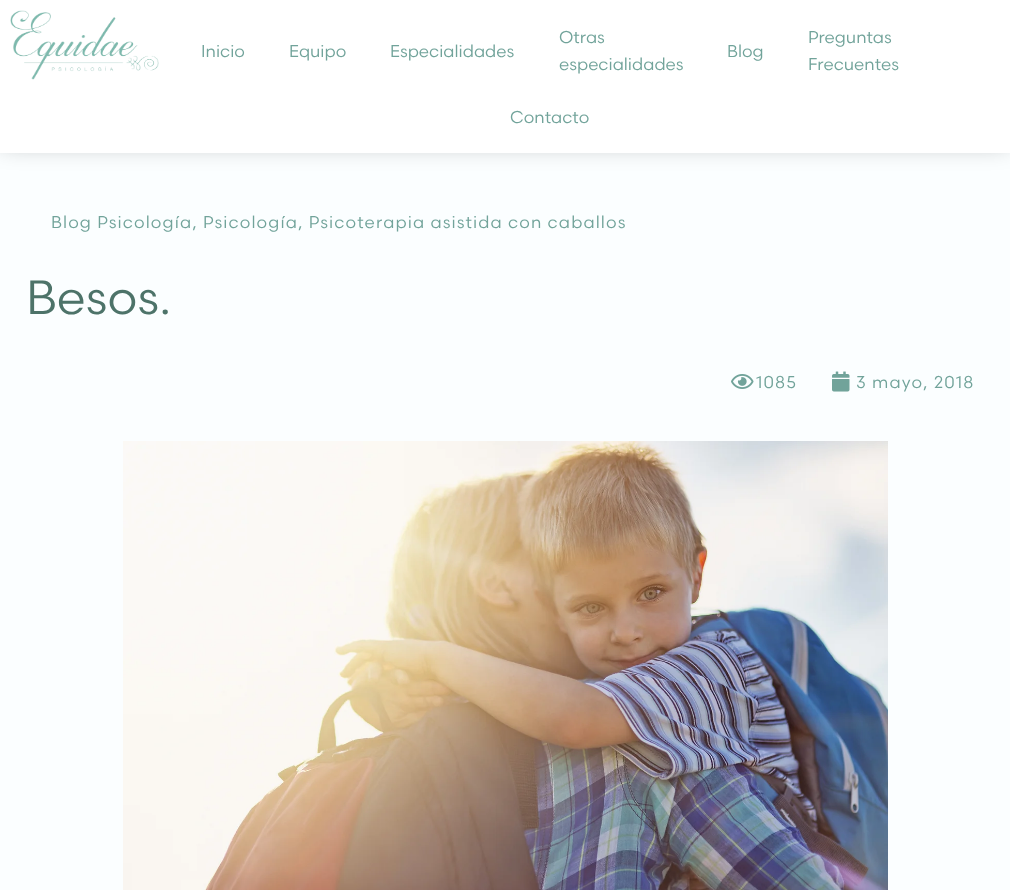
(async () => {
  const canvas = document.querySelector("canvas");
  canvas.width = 1010;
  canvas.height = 890;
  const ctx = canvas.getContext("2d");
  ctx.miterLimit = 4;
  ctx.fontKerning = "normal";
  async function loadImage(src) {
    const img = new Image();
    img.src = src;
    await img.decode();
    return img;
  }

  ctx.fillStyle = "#fbfeff";
  ctx.fillRect(0, 0, 1010, 890);
  ctx.fillStyle = "rgba(0, 0, 0, 0.3)";
  ctx.filter = "blur(12px)";
  ctx.beginPath();
  ctx.rect(1, -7, 1008, 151);
  ctx.fill();
  ctx.filter = "none";
  ctx.fillStyle = "#ffffff";
  ctx.fillRect(0, 0, 1010, 153);
  ctx.drawImage(await loadImage("img/1.png"), 10, 10, 149, 70);
  ctx.drawImage(await loadImage("img/2.png"), 731, 374, 23, 15);
  ctx.drawImage(await loadImage("img/3.png"), 832, 371, 18, 21);
  ctx.drawImage(await loadImage("img/4.png"), 123, 441, 765, 449);
  ctx.font = "17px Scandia";
  ctx.fillStyle = "#71a39a";
  for (const [text, x, y] of [
    ["Inicio", 201, 57],
    ["Equipo", 289, 57],
    ["Especialidades", 390, 57],
    ["Otras", 559, 43],
    ["especialidades", 559, 70],
    ["Blog", 727, 57],
    ["Preguntas", 808, 43],
    ["Frecuentes", 808, 70],
    ["Contacto", 510, 123],
  ]) {
    ctx.fillText(text, x, y);
  }
  ctx.letterSpacing = "1.1px";
  ctx.fillText("Blog Psicología, Psicología, Psicoterapia asistida con caballos", 51, 228);
  ctx.letterSpacing = "0px";
  ctx.font = "48px Scandia";
  ctx.fillStyle = "#4d7369";
  ctx.fillText("Besos.", 26, 314);
  ctx.letterSpacing = "1.1px";
  ctx.font = "17px Scandia";
  ctx.fillStyle = "#71a39a";
  ctx.fillText("1085", 756, 388);
  ctx.fillText("3 mayo, 2018", 856, 388);
})();
